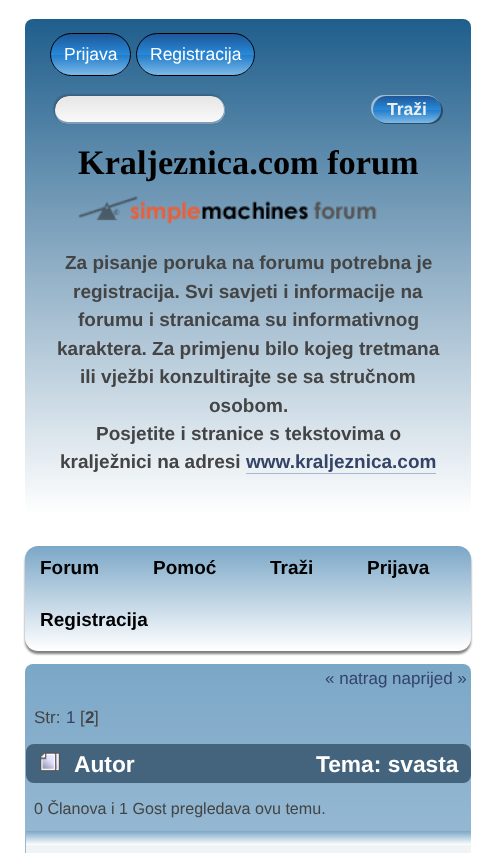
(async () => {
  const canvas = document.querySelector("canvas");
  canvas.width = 496;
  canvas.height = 853;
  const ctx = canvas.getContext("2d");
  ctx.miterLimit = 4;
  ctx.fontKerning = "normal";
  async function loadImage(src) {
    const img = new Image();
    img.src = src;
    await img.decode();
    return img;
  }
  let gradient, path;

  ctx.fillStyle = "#ffffff";
  ctx.fillRect(0, 0, 496, 853);
  gradient = ctx.createLinearGradient(248, 19, 248, 515);
  gradient.addColorStop(0, "#1f5e8c");
  gradient.addColorStop(1, "#ffffff");
  ctx.fillStyle = gradient;
  ctx.beginPath();
  ctx.roundRect(25, 19, 446, 496, 8);
  ctx.fill();
  ctx.save();
  ctx.beginPath();
  ctx.roundRect(50, 33, 81, 43, 21.5);
  ctx.clip();
  gradient = ctx.createLinearGradient(91, 34, 91, 75);
  gradient.addColorStop(0, "#1e5799");
  gradient.addColorStop(0.5, "#2989d8");
  gradient.addColorStop(0.51, "#207cca");
  gradient.addColorStop(1, "#7db9e8");
  ctx.fillStyle = gradient;
  ctx.fillRect(50, 34, 81, 41);
  ctx.restore();
  ctx.beginPath();
  ctx.roundRect(50.5, 33.5, 80, 42, 21);
  ctx.strokeStyle = "#000000";
  ctx.stroke();
  ctx.save();
  ctx.beginPath();
  ctx.roundRect(136, 33, 119, 43, 21.5);
  ctx.clip();
  gradient = ctx.createLinearGradient(196, 34, 196, 75);
  gradient.addColorStop(0, "#1e5799");
  gradient.addColorStop(0.5, "#2989d8");
  gradient.addColorStop(0.51, "#207cca");
  gradient.addColorStop(1, "#7db9e8");
  ctx.fillStyle = gradient;
  ctx.fillRect(136, 34, 119, 41);
  ctx.restore();
  ctx.beginPath();
  ctx.roundRect(136.5, 33.5, 118, 42, 21);
  ctx.stroke();
  ctx.fillStyle = "rgba(0, 0, 0, 0.2)";
  ctx.filter = "blur(0.5px)";
  ctx.beginPath();
  ctx.roundRect(55, 96, 170, 28, 14);
  ctx.fill();
  ctx.filter = "none";
  ctx.fillStyle = "rgba(0, 0, 0, 0.3)";
  ctx.filter = "blur(1px)";
  ctx.beginPath();
  ctx.roundRect(54, 95, 170, 28, 14);
  ctx.fill();
  ctx.filter = "none";
  ctx.save();
  ctx.beginPath();
  ctx.roundRect(55, 96, 170, 28, 14);
  ctx.clip();
  gradient = ctx.createLinearGradient(139, 123, 139, 96);
  gradient.addColorStop(0, "#fafafa");
  gradient.addColorStop(1, "#e6e6e6");
  ctx.fillStyle = gradient;
  ctx.beginPath();
  ctx.roundRect(55, 96, 170, 27, [14, 14, 0, 0]);
  ctx.fill();
  ctx.restore();
  ctx.fillStyle = "#7f9db9";
  path = new Path2D("M69 96H211C219 96 225 102 225 110C225 118 219 124 211 124H69C61 124 55 118 55 110C55 102 61 96 69 96ZM69 96H211C218 96 224 102 224 110C224 117 218 122 211 122H69C61 122 55 117 55 110C55 102 61 96 69 96Z");
  ctx.fill(path, "evenodd");
  ctx.fillStyle = "rgba(0, 0, 0, 0.4)";
  path = new Path2D("M377 119C379 122 383 124 387 124H430C437 124 443 118 443 111C443 107 441 103 438 101C440 103 441 106 441 109C441 117 435 122 428 122H386C382 122 379 121 377 119Z");
  ctx.fill(path);
  ctx.fillStyle = "rgba(255, 255, 255, 0.5)";
  ctx.filter = "blur(0.5px)";
  ctx.beginPath();
  ctx.roundRect(371, 95, 69, 26, 13);
  ctx.fill();
  ctx.filter = "none";
  gradient = ctx.createLinearGradient(407, 96, 407, 123);
  gradient.addColorStop(0, "#1e5799");
  gradient.addColorStop(0.5, "#2989d8");
  gradient.addColorStop(0.51, "#207cca");
  gradient.addColorStop(1, "#7db9e8");
  ctx.fillStyle = gradient;
  ctx.beginPath();
  ctx.roundRect(373, 96, 68, 27, 13.5);
  ctx.fill();
  ctx.drawImage(await loadImage("img/1.png"), 78, 196, 299, 28);
  ctx.fillStyle = "#a8b6cf";
  ctx.fillRect(246, 473, 190, 1);
  ctx.fillStyle = "rgba(0, 0, 0, 0.5)";
  ctx.filter = "blur(1px)";
  ctx.beginPath();
  ctx.roundRect(25, 549, 446, 105, 13);
  ctx.fill();
  ctx.filter = "none";
  gradient = ctx.createLinearGradient(248, 546, 248, 651);
  gradient.addColorStop(0, "#7ba7c7");
  gradient.addColorStop(1, "#ffffff");
  ctx.fillStyle = gradient;
  ctx.beginPath();
  ctx.roundRect(25, 546, 446, 105, 13);
  ctx.fill();
  gradient = ctx.createLinearGradient(248, 664, 248, 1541);
  gradient.addColorStop(0, "#7ba7c7");
  gradient.addColorStop(1, "#ffffff");
  ctx.fillStyle = gradient;
  ctx.beginPath();
  ctx.roundRect(25, 664, 446, 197, 8);
  ctx.fill();
  ctx.fillStyle = "#43647c";
  ctx.beginPath();
  ctx.roundRect(26, 744, 445, 39, 8);
  ctx.fill();
  ctx.drawImage(await loadImage("img/2.png"), 40, 752, 21, 20);
  ctx.fillStyle = "#f0f4f7";
  ctx.fillRect(26, 845, 445, 8);
  gradient = ctx.createLinearGradient(249, 831, 249, 845);
  gradient.addColorStop(0, "#7ba7c7");
  gradient.addColorStop(1, "#ffffff");
  ctx.fillStyle = gradient;
  ctx.fillRect(26, 831, 445, 14);
  ctx.font = "17.5px Liberation Sans";
  ctx.fillStyle = "#ffffff";
  ctx.fillText("Prijava", 64, 60);
  ctx.fillText("Registracija", 150, 60);
  ctx.font = "bold 17.5px Liberation Sans";
  ctx.fillStyle = "#eeeeee";
  ctx.fillText("Traži", 387, 115);
  ctx.font = "bold 34.25px Liberation Serif";
  ctx.fillStyle = "#000000";
  ctx.fillText("Kraljeznica.com forum", 78, 174);
  ctx.font = "bold 19px Liberation Sans";
  ctx.fillStyle = "#444444";
  for (const [text, x, y] of [
    ["Za pisanje poruka na forumu potrebna je", 65, 269],
    ["registracija. Svi savjeti i informacije na", 73, 298],
    ["forumu i stranicama su informativnog", 78, 326],
    ["karaktera. Za primjenu bilo kojeg tretmana", 57, 355],
    ["ili vježbi konzultirajte se sa stručnom", 80, 383],
    ["osobom.", 209, 412],
    ["Posjetite i stranice s tekstovima o", 96, 440],
    ["kralježnici na adresi", 60, 468],
  ]) {
    ctx.fillText(text, x, y);
  }
  ctx.fillStyle = "#334466";
  ctx.fillText("www.kraljeznica.com", 246, 468);
  ctx.fillStyle = "#000000";
  for (const [text, x, y] of [
    ["Forum", 40, 574],
    ["Pomoć", 153, 574],
    ["Traži", 270, 574],
    ["Prijava", 367, 574],
    ["Registracija", 40, 626],
  ]) {
    ctx.fillText(text, x, y);
  }
  ctx.font = "17px Liberation Sans";
  ctx.fillStyle = "#334466";
  ctx.fillText("« natrag naprijed »", 325, 684);
  ctx.fillStyle = "#444444";
  ctx.fillText("Str:", 34, 723);
  ctx.fillStyle = "#334466";
  ctx.fillText("1", 66, 723);
  ctx.fillStyle = "#444444";
  ctx.fillText("[", 80, 723);
  ctx.font = "bold 17px Liberation Sans";
  ctx.fillText("2", 85, 723);
  ctx.font = "17px Liberation Sans";
  ctx.fillText("]", 94, 723);
  ctx.font = "bold 22.75px Liberation Sans";
  ctx.fillStyle = "#ffffff";
  ctx.fillText("Autor", 74, 772);
  ctx.fillText("Tema: svasta", 316, 772);
  ctx.font = "16.1px Liberation Sans";
  ctx.fillStyle = "#444444";
  ctx.fillText("0 Članova i 1 Gost pregledava ovu temu.", 34, 814);
})();
